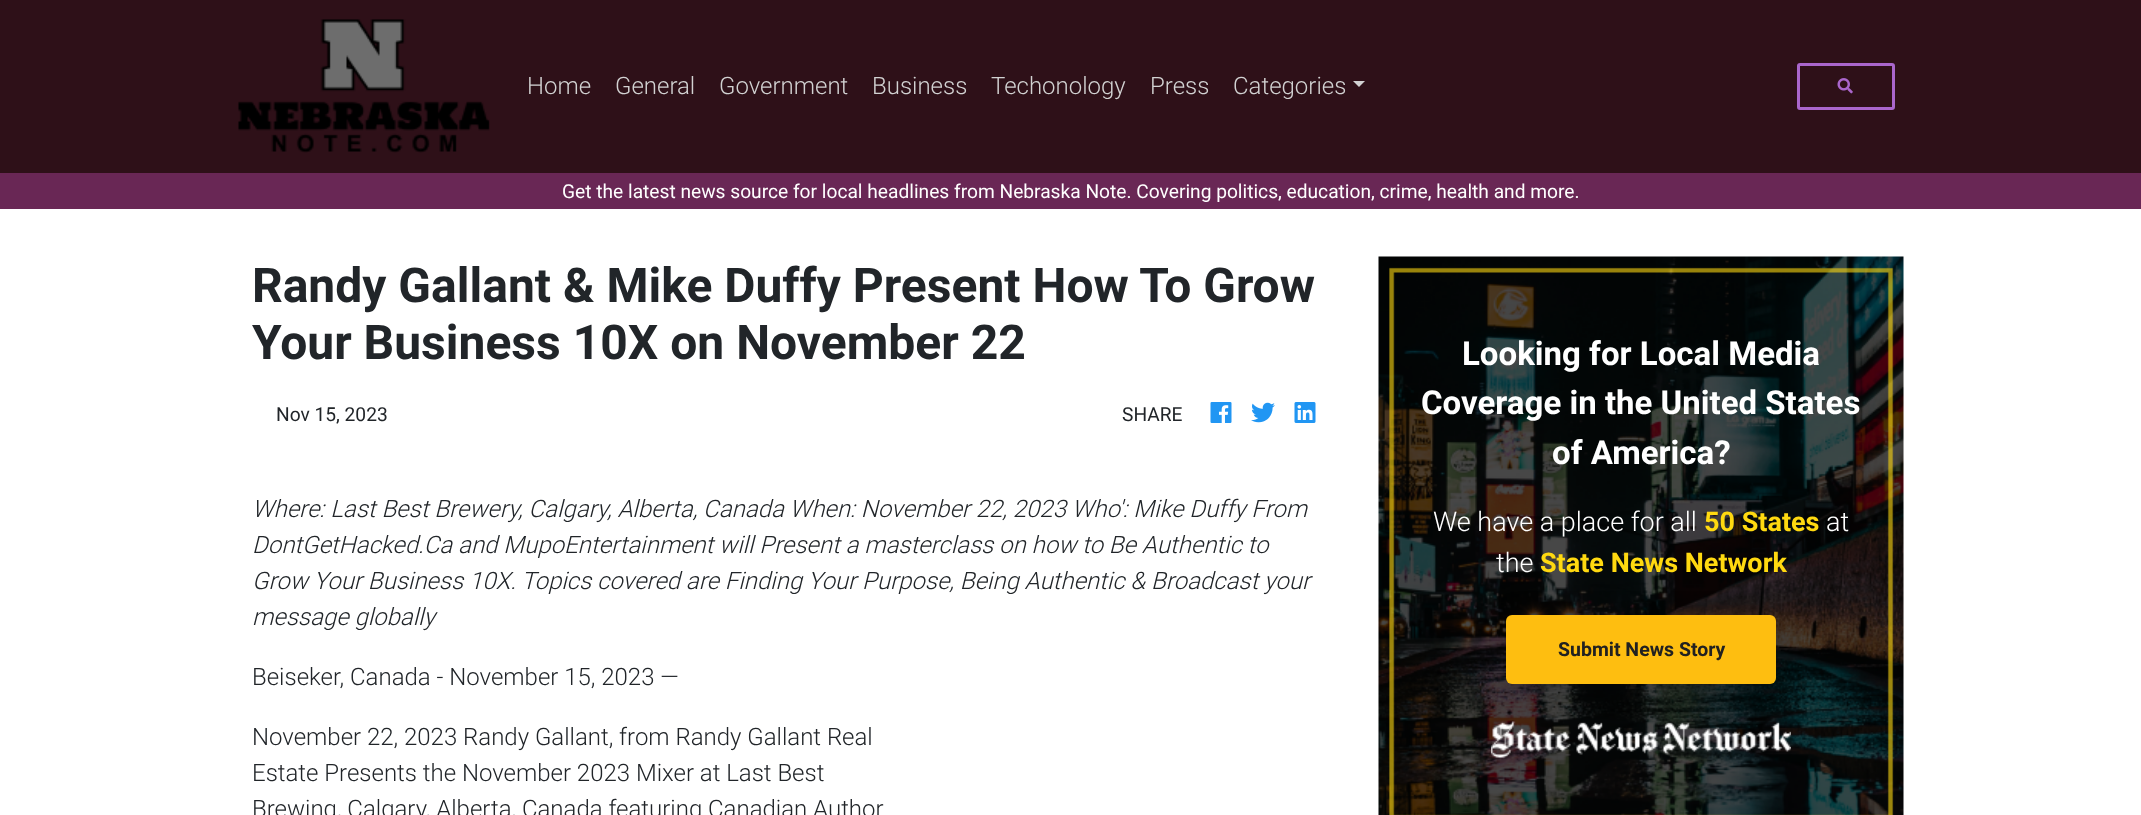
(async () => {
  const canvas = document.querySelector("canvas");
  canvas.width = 2141;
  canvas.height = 815;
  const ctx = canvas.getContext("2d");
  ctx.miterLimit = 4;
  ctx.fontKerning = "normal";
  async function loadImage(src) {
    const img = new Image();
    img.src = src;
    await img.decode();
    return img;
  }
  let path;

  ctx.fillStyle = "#ffffff";
  ctx.fillRect(0, 0, 2141, 815);
  ctx.fillStyle = "#2e1018";
  ctx.fillRect(0, 0, 2141, 173);
  ctx.drawImage(await loadImage("img/1.png"), 238, 19, 252, 134);
  ctx.fillStyle = "#d2d2d2";
  path = new Path2D("M1353 81H1365L1359 87Z");
  ctx.fill(path);
  ctx.beginPath();
  ctx.roundRect(1798.5, 64.5, 95, 44, 1.5);
  ctx.strokeStyle = "#aa66cc";
  ctx.lineWidth = 3;
  ctx.stroke();
  ctx.drawImage(await loadImage("img/2.png"), 1837, 78, 16, 16);
  ctx.fillStyle = "#692755";
  ctx.fillRect(0, 173, 2141, 36);
  ctx.drawImage(await loadImage("img/3.png"), 1210, 402, 22, 21);
  ctx.drawImage(await loadImage("img/4.png"), 1251, 402, 24, 21);
  ctx.drawImage(await loadImage("img/5.png"), 1294, 402, 22, 21);
  ctx.drawImage(await loadImage("img/6.png"), 1378, 256, 526, 559);
  ctx.fillStyle = "rgba(0, 0, 0, 0.25)";
  ctx.filter = "blur(12px)";
  ctx.beginPath();
  ctx.roundRect(1506, 617, 270, 69, 6);
  ctx.fill();
  ctx.filter = "none";
  ctx.fillStyle = "#febe10";
  ctx.beginPath();
  ctx.roundRect(1506, 615, 270, 69, 6);
  ctx.fill();
  ctx.drawImage(await loadImage("img/7.png"), 1491, 721, 300, 37);
  ctx.font = "300 24px Roboto";
  ctx.fillStyle = "#d2d2d2";
  for (const [text, x, y] of [
    ["Home", 527, 94],
    ["General", 615, 94],
    ["Government", 719, 94],
    ["Business", 872, 94],
    ["Techonology", 991, 94],
    ["Press", 1150, 94],
    ["Categories", 1233, 94],
  ]) {
    ctx.fillText(text, x, y);
  }
  ctx.font = "19.2px Roboto";
  ctx.fillStyle = "#ffffff";
  ctx.fillText("Get the latest news source for local headlines from Nebraska Note. Covering politics, education, crime, health and more.", 562, 198);
  ctx.font = "bold 48px Roboto";
  ctx.fillStyle = "#212529";
  ctx.fillText("Randy Gallant & Mike Duffy Present How To Grow", 252, 302);
  ctx.fillText("Your Business 10X on November 22", 252, 359);
  ctx.font = "19.2px Roboto";
  ctx.fillText("Nov 15, 2023", 276, 421);
  ctx.fillText("SHARE", 1122, 421);
  ctx.font = "italic 300 24px Roboto";
  for (const [text, x, y] of [
    ["Where: Last Best Brewery, Calgary, Alberta, Canada When: November 22, 2023 Who': Mike Duffy From", 252, 517],
    ["DontGetHacked.Ca and MupoEntertainment will Present a masterclass on how to Be Authentic to", 252, 553],
    ["Grow Your Business 10X. Topics covered are Finding Your Purpose, Being Authentic & Broadcast your", 252, 589],
    ["message globally", 252, 625],
  ]) {
    ctx.fillText(text, x, y);
  }
  ctx.font = "300 24px Roboto";
  for (const [text, x, y] of [
    ["Beiseker, Canada - November 15, 2023 —", 252, 685],
    ["November 22, 2023 Randy Gallant, from Randy Gallant Real", 252, 745],
    ["Estate Presents the November 2023 Mixer at Last Best", 252, 781],
    ["Brewing, Calgary, Alberta, Canada featuring Canadian Author", 252, 817],
  ]) {
    ctx.fillText(text, x, y);
  }
  ctx.font = "bold 33px Roboto";
  ctx.fillStyle = "#ffffff";
  for (const [text, x, y] of [
    ["Looking for Local Media", 1462, 365],
    ["Coverage in the United States", 1421, 414],
    ["of America?", 1552, 464],
  ]) {
    ctx.fillText(text, x, y);
  }
  ctx.font = "300 27px Roboto";
  ctx.fillText("We have a place for all", 1433, 531);
  ctx.font = "bold 27px Roboto";
  ctx.fillStyle = "#ffd910";
  ctx.fillText("50 States", 1704, 531);
  ctx.font = "300 27px Roboto";
  ctx.fillStyle = "#ffffff";
  ctx.fillText("at", 1826, 531);
  ctx.fillText("the", 1496, 572);
  ctx.font = "bold 27px Roboto";
  ctx.fillStyle = "#ffd910";
  ctx.fillText("State News Network", 1540, 572);
  ctx.font = "bold 19.5px Roboto";
  ctx.fillStyle = "#212121";
  ctx.fillText("Submit News Story", 1558, 656);
})();
